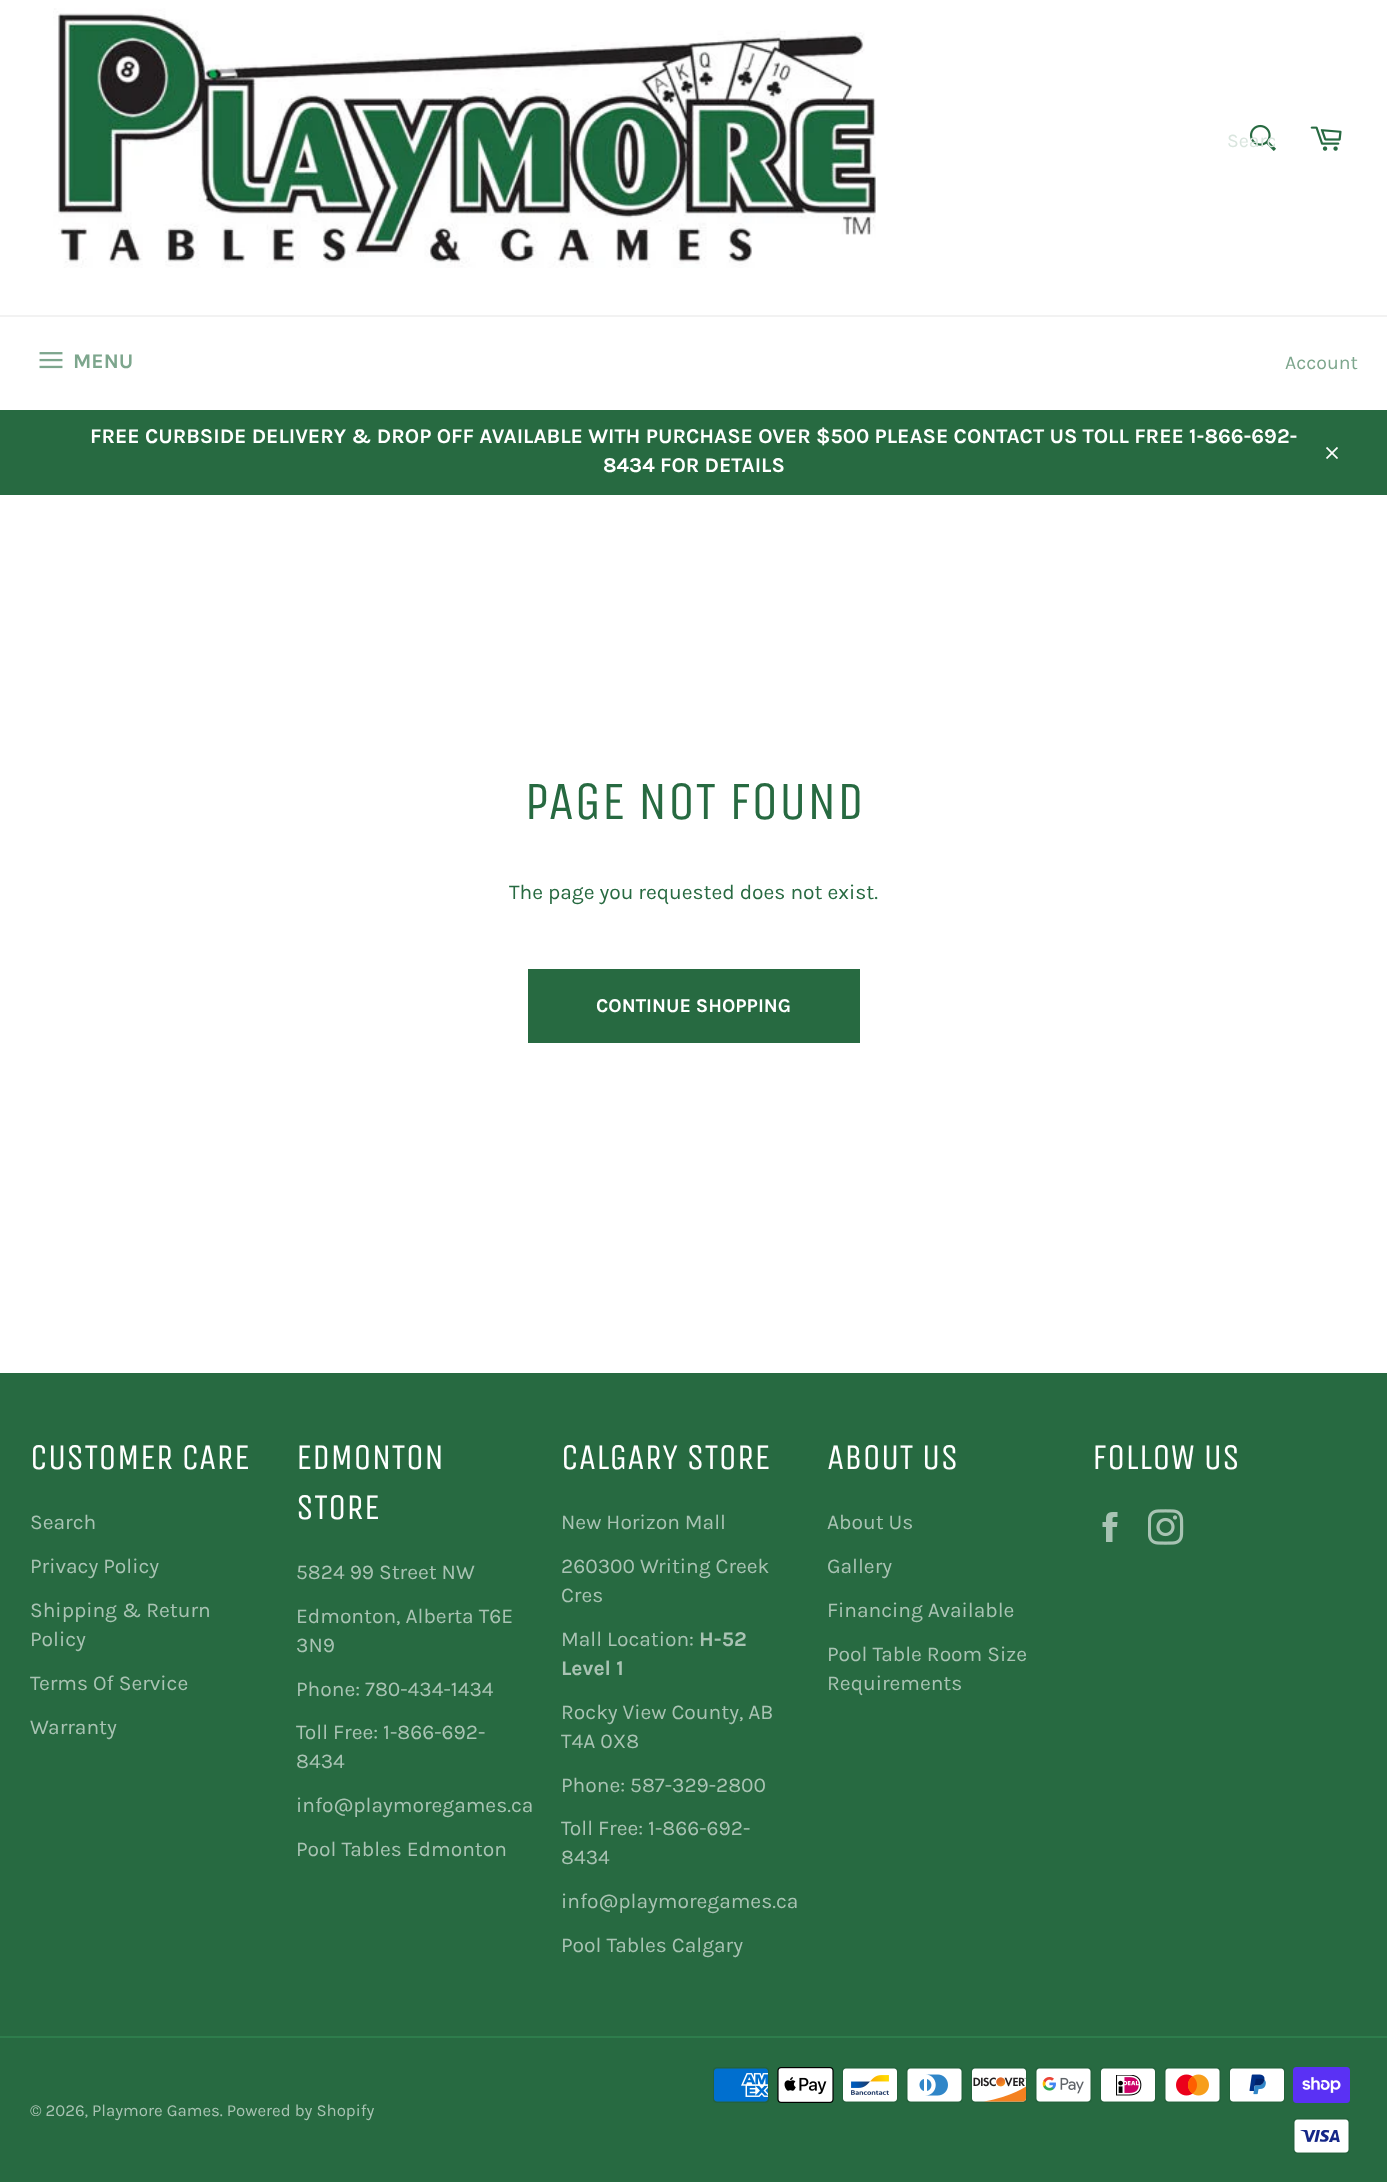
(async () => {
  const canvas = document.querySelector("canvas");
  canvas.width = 1387;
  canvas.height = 2182;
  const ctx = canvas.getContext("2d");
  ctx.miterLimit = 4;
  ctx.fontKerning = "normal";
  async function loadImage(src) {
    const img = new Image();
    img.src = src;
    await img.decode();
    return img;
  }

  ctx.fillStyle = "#ffffff";
  ctx.fillRect(0, 0, 1387, 2182);
  ctx.drawImage(await loadImage("img/1.png"), 53, 8, 823, 260);
  ctx.drawImage(await loadImage("img/2.png"), 1249, 124, 27, 27);
  ctx.drawImage(await loadImage("img/3.png"), 1310, 126, 32, 25);
  ctx.fillStyle = "#f2f2f2";
  ctx.fillRect(0, 315, 1387, 2);
  ctx.drawImage(await loadImage("img/4.png"), 39, 352, 24, 17);
  ctx.fillStyle = "#276a41";
  ctx.fillRect(0, 410, 1387, 85);
  ctx.drawImage(await loadImage("img/5.png"), 1326, 447, 12, 12);
  ctx.fillRect(528, 969, 332, 74);
  ctx.fillRect(0, 1373, 1387, 809);
  ctx.drawImage(await loadImage("img/6.png"), 1102, 1512, 16, 30);
  ctx.drawImage(await loadImage("img/7.png"), 1148, 1509, 36, 36);
  ctx.fillStyle = "#2e7d4c";
  ctx.fillRect(0, 2036, 1387, 2);
  ctx.drawImage(await loadImage("img/8.png"), 713, 2067, 56, 36);
  ctx.drawImage(await loadImage("img/9.png"), 777, 2067, 57, 36);
  ctx.drawImage(await loadImage("img/10.png"), 842, 2067, 56, 36);
  ctx.drawImage(await loadImage("img/11.png"), 906, 2067, 57, 36);
  ctx.drawImage(await loadImage("img/12.png"), 971, 2067, 56, 36);
  ctx.drawImage(await loadImage("img/13.png"), 1035, 2067, 57, 36);
  ctx.drawImage(await loadImage("img/14.png"), 1100, 2067, 56, 36);
  ctx.drawImage(await loadImage("img/15.png"), 1164, 2067, 57, 36);
  ctx.drawImage(await loadImage("img/16.png"), 1229, 2067, 56, 36);
  ctx.drawImage(await loadImage("img/17.png"), 1293, 2067, 57, 36);
  ctx.drawImage(await loadImage("img/18.png"), 1293, 2118, 57, 36);
  ctx.save();
  ctx.beginPath();
  ctx.rect(1227, 129, 48, 23);
  ctx.clip();
  ctx.font = "19.5px Karla";
  ctx.fillStyle = "#d9e5de";
  ctx.fillText("Searc", 1227, 147);
  ctx.restore();
  ctx.font = "bold 21px Karla";
  ctx.fillStyle = "#7da68d";
  ctx.fillText("MENU", 73, 368);
  ctx.font = "19.5px Karla";
  ctx.fillText("Account", 1285, 369);
  ctx.font = "bold 21px Karla";
  ctx.fillStyle = "#ffffff";
  ctx.fillText("FREE CURBSIDE DELIVERY & DROP OFF AVAILABLE WITH PURCHASE OVER $500 PLEASE CONTACT US TOLL FREE 1-866-692-", 90, 443);
  ctx.fillText("8434 FOR DETAILS", 603, 472);
  ctx.font = "54px Unica One";
  ctx.fillStyle = "#276a41";
  ctx.fillText("PAGE NOT FOUND", 524, 819);
  ctx.font = "21px Karla";
  ctx.fillText("The page you requested does not exist.", 509, 899);
  ctx.font = "bold 19.5px Karla";
  ctx.fillStyle = "#ffffff";
  ctx.fillText("CONTINUE SHOPPING", 596, 1012);
  ctx.font = "36px Unica One";
  ctx.fillText("CUSTOMER CARE", 30, 1469);
  ctx.font = "21px Karla";
  ctx.fillStyle = "#a9c3b3";
  for (const [text, x, y] of [
    ["Search", 30, 1529],
    ["Privacy Policy", 30, 1573],
    ["Shipping & Return", 30, 1617],
    ["Policy", 30, 1646],
    ["Terms Of Service", 30, 1690],
    ["Warranty", 30, 1734],
  ]) {
    ctx.fillText(text, x, y);
  }
  ctx.font = "36px Unica One";
  ctx.fillStyle = "#ffffff";
  ctx.fillText("EDMONTON", 296, 1469);
  ctx.fillText("STORE", 296, 1519);
  ctx.font = "21px Karla";
  ctx.fillStyle = "#a9c3b3";
  for (const [text, x, y] of [
    ["5824 99 Street NW", 296, 1579],
    ["Edmonton, Alberta T6E", 296, 1623],
    ["3N9", 296, 1652],
    ["Phone: 780-434-1434", 296, 1696],
    ["Toll Free: 1-866-692-", 296, 1739],
    ["8434", 296, 1768],
    ["info@playmoregames.ca", 296, 1812],
    ["Pool Tables Edmonton", 296, 1856],
  ]) {
    ctx.fillText(text, x, y);
  }
  ctx.font = "36px Unica One";
  ctx.fillStyle = "#ffffff";
  ctx.fillText("CALGARY STORE", 561, 1469);
  ctx.font = "21px Karla";
  ctx.fillStyle = "#a9c3b3";
  for (const [text, x, y] of [
    ["New Horizon Mall", 561, 1529],
    ["260300 Writing Creek", 561, 1573],
    ["Cres", 561, 1602],
    ["Mall Location:", 561, 1646],
  ]) {
    ctx.fillText(text, x, y);
  }
  ctx.font = "bold 21px Karla";
  ctx.fillText("H-52", 699, 1646);
  ctx.fillText("Level 1", 561, 1675);
  ctx.font = "21px Karla";
  for (const [text, x, y] of [
    ["Rocky View County, AB", 561, 1719],
    ["T4A 0X8", 561, 1748],
    ["Phone: 587-329-2800", 561, 1792],
    ["Toll Free: 1-866-692-", 561, 1835],
    ["8434", 561, 1864],
    ["info@playmoregames.ca", 561, 1908],
    ["Pool Tables Calgary", 561, 1952],
  ]) {
    ctx.fillText(text, x, y);
  }
  ctx.font = "36px Unica One";
  ctx.fillStyle = "#ffffff";
  ctx.fillText("ABOUT US", 827, 1469);
  ctx.font = "21px Karla";
  ctx.fillStyle = "#a9c3b3";
  for (const [text, x, y] of [
    ["About Us", 827, 1529],
    ["Gallery", 827, 1573],
    ["Financing Available", 827, 1617],
    ["Pool Table Room Size", 827, 1661],
    ["Requirements", 827, 1690],
  ]) {
    ctx.fillText(text, x, y);
  }
  ctx.font = "36px Unica One";
  ctx.fillStyle = "#ffffff";
  ctx.fillText("FOLLOW US", 1092, 1469);
  ctx.font = "16.8px Karla";
  ctx.fillStyle = "#a9c3b3";
  ctx.fillText("© 2026, Playmore Games. Powered by Shopify", 30, 2116);
})();
